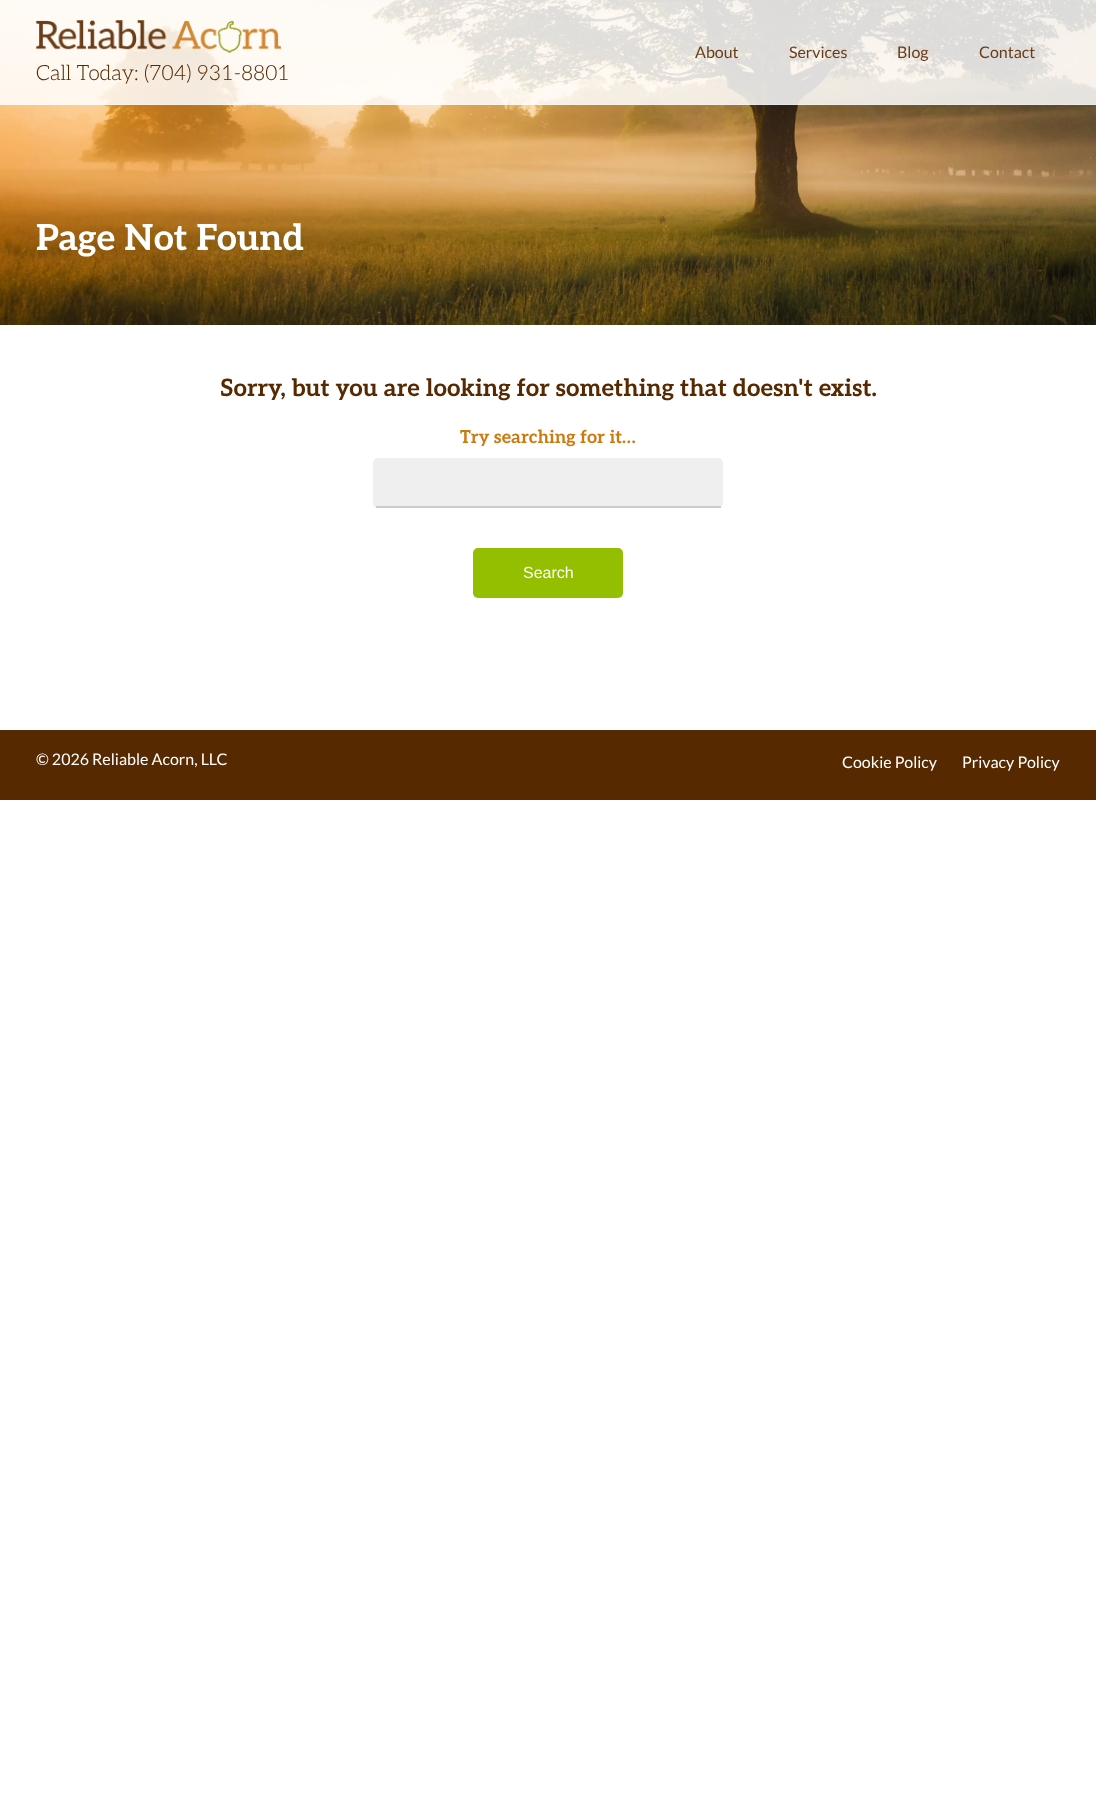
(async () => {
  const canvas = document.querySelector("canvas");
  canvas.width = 1096;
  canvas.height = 1806;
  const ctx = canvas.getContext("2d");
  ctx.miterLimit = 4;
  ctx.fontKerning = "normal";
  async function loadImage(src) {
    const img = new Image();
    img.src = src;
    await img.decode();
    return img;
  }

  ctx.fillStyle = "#ffffff";
  ctx.fillRect(0, 0, 1096, 1806);
  ctx.drawImage(await loadImage("img/1.png"), 0, 0, 1096, 325);
  ctx.fillStyle = "rgba(255, 255, 255, 0.85)";
  ctx.fillRect(0, 0, 1096, 105);
  ctx.fillStyle = "rgba(255, 255, 255, 0.25)";
  ctx.fillRect(0, 104, 1096, 1);
  ctx.drawImage(await loadImage("img/2.png"), 36, 20, 245, 33);
  ctx.fillStyle = "#efefef";
  ctx.beginPath();
  ctx.roundRect(373, 458, 350, 50, 5);
  ctx.fill();
  ctx.fillStyle = "#cccccc";
  ctx.fillRect(376, 506, 345, 2);
  ctx.fillStyle = "#94bf00";
  ctx.beginPath();
  ctx.roundRect(473, 548, 150, 50, 5);
  ctx.fill();
  ctx.fillStyle = "#562900";
  ctx.fillRect(0, 730, 1096, 70);
  ctx.font = "16px Lato";
  ctx.fillStyle = "#6a3d18";
  for (const [text, x, y] of [
    ["About", 695, 58],
    ["Services", 789, 58],
    ["Blog", 897, 58],
    ["Contact", 979, 58],
  ]) {
    ctx.fillText(text, x, y);
  }
  ctx.font = "300 21px Aleo";
  ctx.fillStyle = "#562900";
  ctx.fillText("Call Today: (704) 931-8801", 36, 80);
  ctx.font = "bold 36px Aleo";
  ctx.fillStyle = "#ffffff";
  ctx.fillText("Page Not Found", 36, 250);
  ctx.font = "bold 24px Aleo";
  ctx.fillStyle = "#562900";
  ctx.fillText("Sorry, but you are looking for something that doesn't exist.", 220, 396);
  ctx.font = "bold 18px Aleo";
  ctx.fillStyle = "#ce790e";
  ctx.fillText("Try searching for it…", 460, 443);
  ctx.font = "16px Liberation Sans";
  ctx.fillStyle = "#ffffff";
  ctx.fillText("Search", 523, 578);
  ctx.font = "16px Lato";
  for (const [text, x, y] of [
    ["© 2026 Reliable Acorn, LLC", 36, 765],
    ["Cookie Policy", 842, 768],
    ["Privacy Policy", 962, 768],
  ]) {
    ctx.fillText(text, x, y);
  }
})();
